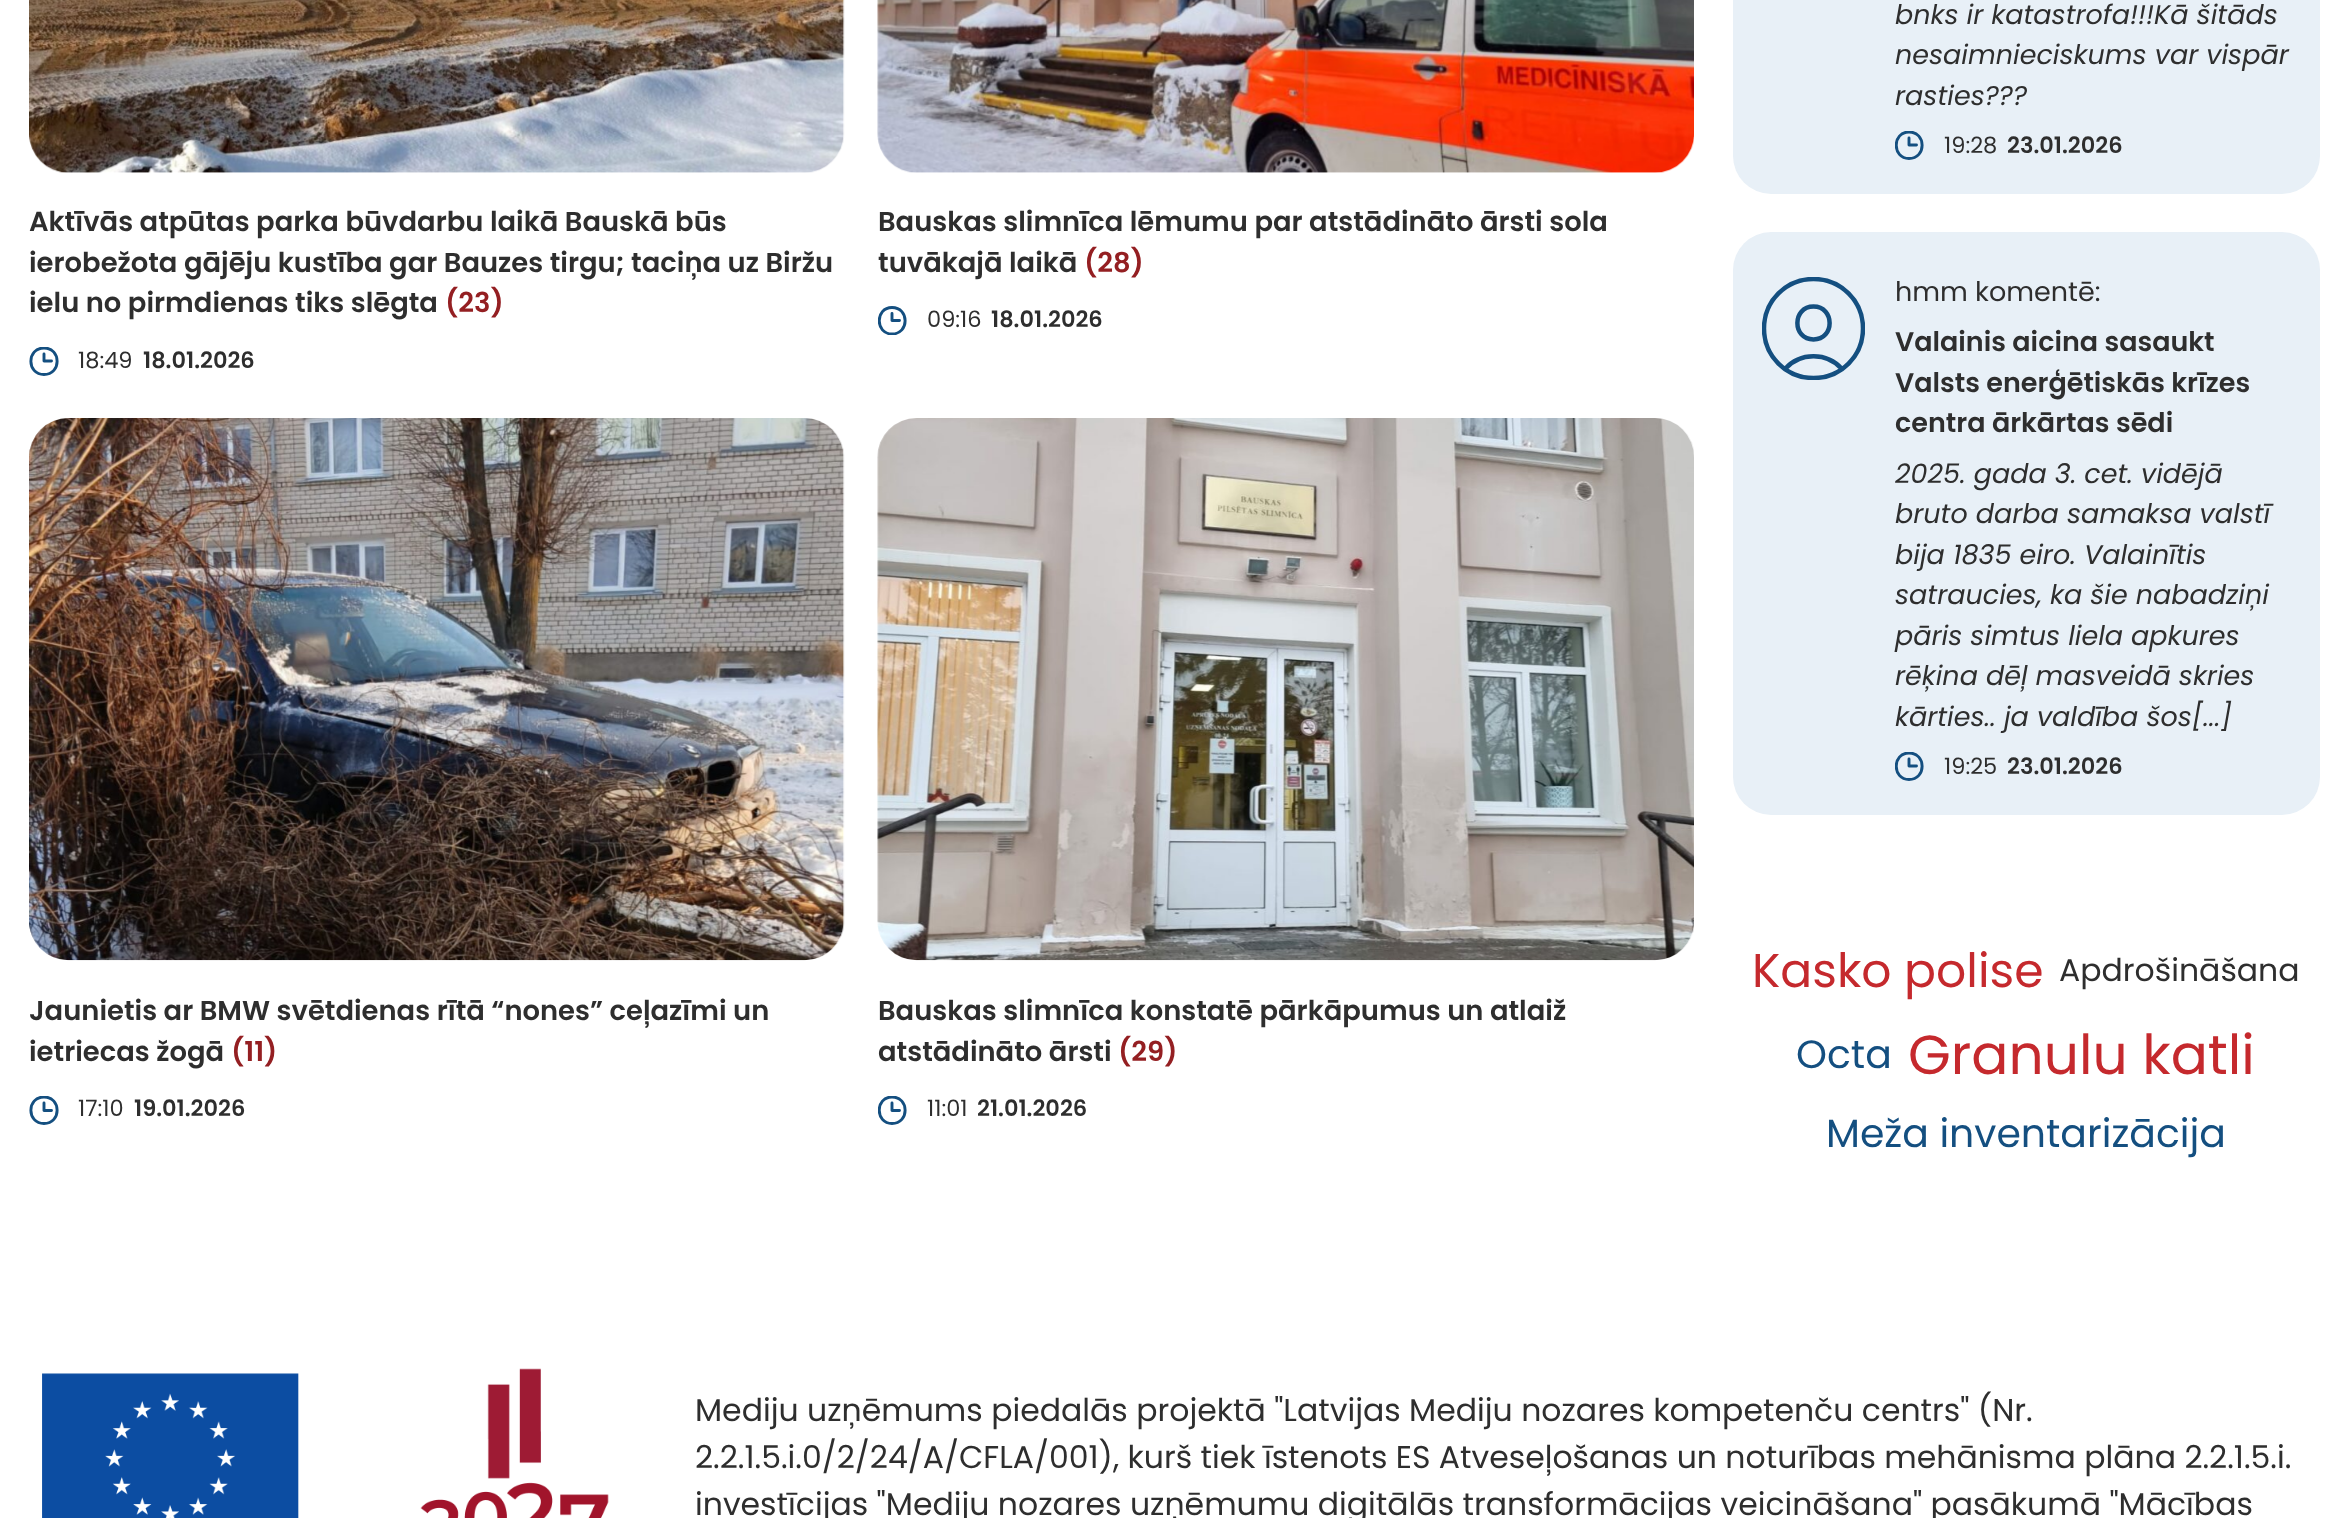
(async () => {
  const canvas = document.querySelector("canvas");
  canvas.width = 2347;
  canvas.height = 1518;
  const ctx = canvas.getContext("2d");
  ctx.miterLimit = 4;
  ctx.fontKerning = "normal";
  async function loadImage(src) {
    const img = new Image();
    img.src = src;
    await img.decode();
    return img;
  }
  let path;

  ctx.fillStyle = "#ffffff";
  ctx.fillRect(0, 0, 2347, 1518);
  ctx.drawImage(await loadImage("img/1.png"), 29, 0, 816, 173);
  ctx.save();
  ctx.beginPath();
  ctx.rect(29, 347, 30, 29);
  ctx.clip();
  path = new Path2D("M44 354V361H51.5M44 374.5C26.5 374.5 26.5 348 44 348C61.5 348 61.5 374.5 44 374.5Z");
  ctx.strokeStyle = "#144f80";
  ctx.lineWidth = 2.9;
  ctx.lineCap = "round";
  ctx.lineJoin = "round";
  ctx.stroke(path);
  ctx.restore();
  ctx.drawImage(await loadImage("img/2.png"), 877, 0, 817, 173);
  ctx.save();
  ctx.beginPath();
  ctx.rect(878, 306, 29, 29);
  ctx.clip();
  path = new Path2D("M892 313.5V320.5H899.5M892 334C875 334 875 307.5 892 307.5C909.5 307.5 909.5 334 892 334Z");
  ctx.strokeStyle = "#144f80";
  ctx.lineWidth = 2.9;
  ctx.lineCap = "round";
  ctx.lineJoin = "round";
  ctx.stroke(path);
  ctx.restore();
  ctx.drawImage(await loadImage("img/3.png"), 29, 418, 816, 543);
  ctx.save();
  ctx.beginPath();
  ctx.rect(29, 1096, 30, 29);
  ctx.clip();
  path = new Path2D("M44 1103V1110.5H51.5M44 1123.5C26.5 1123.5 26.5 1097 44 1097C61.5 1097 61.5 1123.5 44 1123.5Z");
  ctx.strokeStyle = "#144f80";
  ctx.lineWidth = 2.9;
  ctx.lineCap = "round";
  ctx.lineJoin = "round";
  ctx.stroke(path);
  ctx.restore();
  ctx.drawImage(await loadImage("img/4.png"), 877, 418, 817, 543);
  ctx.save();
  ctx.beginPath();
  ctx.rect(878, 1096, 29, 29);
  ctx.clip();
  path = new Path2D("M892 1103V1110.5H899.5M892 1123.5C875 1123.5 875 1097 892 1097C909.5 1097 909.5 1123.5 892 1123.5Z");
  ctx.strokeStyle = "#144f80";
  ctx.lineWidth = 2.9;
  ctx.lineCap = "round";
  ctx.lineJoin = "round";
  ctx.stroke(path);
  ctx.restore();
  ctx.fillStyle = "#e8f0f7";
  ctx.beginPath();
  ctx.roundRect(1733, -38, 587, 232, 38);
  ctx.fill();
  ctx.save();
  ctx.beginPath();
  ctx.rect(1895, 131, 29, 31);
  ctx.clip();
  path = new Path2D("M1909 138V145H1916.5M1909 158.5C1892 158.5 1892 132 1909 132C1926.5 132 1926.5 158.5 1909 158.5Z");
  ctx.strokeStyle = "#144f80";
  ctx.lineWidth = 2.9;
  ctx.lineCap = "round";
  ctx.lineJoin = "round";
  ctx.stroke(path);
  ctx.restore();
  ctx.beginPath();
  ctx.roundRect(1733, 232, 587, 583, 38);
  ctx.fill();
  ctx.save();
  ctx.beginPath();
  ctx.rect(1762, 277, 103, 103);
  ctx.clip();
  path = new Path2D("M1842 369C1827 352 1800 352 1785 369M1813.5 378C1786 378 1764 356 1764 328.5C1764 301 1786 279 1813.5 279C1841 279 1863 301 1863 328.5C1863 356 1841 378 1813.5 378ZM1813.5 339.5C1792 339.5 1792 306.5 1813.5 306.5C1835 306.5 1835 339.5 1813.5 339.5Z");
  ctx.strokeStyle = "#144f80";
  ctx.lineWidth = 4.5;
  ctx.lineCap = "round";
  ctx.lineJoin = "round";
  ctx.stroke(path);
  ctx.restore();
  ctx.save();
  ctx.beginPath();
  ctx.rect(1895, 752, 29, 29);
  ctx.clip();
  path = new Path2D("M1909 759V766H1916.5M1909 779.5C1892 779.5 1892 753 1909 753C1926.5 753 1926.5 779.5 1909 779.5Z");
  ctx.strokeStyle = "#144f80";
  ctx.lineWidth = 2.9;
  ctx.lineCap = "round";
  ctx.lineJoin = "round";
  ctx.stroke(path);
  ctx.restore();
  ctx.drawImage(await loadImage("img/5.png"), 42, 1368, 567, 150);
  ctx.font = "600 27.4px Poppins";
  ctx.fillStyle = "#2e2e2e";
  for (const [text, x, y] of [
    ["Aktīvās atpūtas parka būvdarbu laikā Bauskā būs", 29, 231],
    ["ierobežota gājēju kustība gar Bauzes tirgu; taciņa uz Biržu", 29, 272],
    ["ielu no pirmdienas tiks slēgta", 29, 312],
  ]) {
    ctx.fillText(text, x, y);
  }
  ctx.fillStyle = "#941f22";
  ctx.fillText("(23)", 445, 312);
  ctx.font = "22.5px Poppins";
  ctx.fillStyle = "#2e2e2e";
  ctx.fillText("18:49", 78, 368);
  ctx.font = "600 22.5px Poppins";
  ctx.fillText("18.01.2026", 143, 368);
  ctx.font = "600 27.4px Poppins";
  ctx.fillText("Bauskas slimnīca lēmumu par atstādināto ārsti sola", 878, 231);
  ctx.fillText("tuvākajā laikā", 878, 272);
  ctx.fillStyle = "#941f22";
  ctx.fillText("(28)", 1084, 272);
  ctx.font = "22.5px Poppins";
  ctx.fillStyle = "#2e2e2e";
  ctx.fillText("09:16", 927, 327);
  ctx.font = "600 22.5px Poppins";
  ctx.fillText("18.01.2026", 991, 327);
  ctx.font = "600 27.4px Poppins";
  ctx.fillText("Jaunietis ar BMW svētdienas rītā “nones” ceļazīmi un", 29, 1020);
  ctx.fillText("ietriecas žogā", 29, 1061);
  ctx.fillStyle = "#941f22";
  ctx.fillText("(11)", 231, 1061);
  ctx.font = "22.5px Poppins";
  ctx.fillStyle = "#2e2e2e";
  ctx.fillText("17:10", 78, 1116);
  ctx.font = "600 22.5px Poppins";
  ctx.fillText("19.01.2026", 134, 1116);
  ctx.font = "600 27.4px Poppins";
  ctx.fillText("Bauskas slimnīca konstatē pārkāpumus un atlaiž", 878, 1020);
  ctx.fillText("atstādināto ārsti", 878, 1061);
  ctx.fillStyle = "#941f22";
  ctx.fillText("(29)", 1118, 1061);
  ctx.font = "22.5px Poppins";
  ctx.fillStyle = "#2e2e2e";
  ctx.fillText("11:01", 927, 1116);
  ctx.font = "600 22.5px Poppins";
  ctx.fillText("21.01.2026", 977, 1116);
  ctx.font = "italic 27px Poppins";
  for (const [text, x, y] of [
    ["bnks ir katastrofa!!!Kā šitāds", 1895, 24],
    ["nesaimnieciskums var vispār", 1895, 64],
    ["rasties???", 1895, 105],
  ]) {
    ctx.fillText(text, x, y);
  }
  ctx.font = "22.5px Poppins";
  ctx.fillText("19:28", 1944, 153);
  ctx.font = "600 22.5px Poppins";
  ctx.fillText("23.01.2026", 2007, 153);
  ctx.font = "27px Poppins";
  ctx.fillText("hmm komentē:", 1895, 301);
  ctx.font = "600 27px Poppins";
  for (const [text, x, y] of [
    ["Valainis aicina sasaukt", 1895, 351],
    ["Valsts enerģētiskās krīzes", 1895, 392],
    ["centra ārkārtas sēdi", 1895, 432],
  ]) {
    ctx.fillText(text, x, y);
  }
  ctx.font = "italic 27px Poppins";
  for (const [text, x, y] of [
    ["2025. gada 3. cet. vidējā", 1895, 483],
    ["bruto darba samaksa valstī", 1895, 523],
    ["bija 1835 eiro. Valainītis", 1895, 564],
    ["satraucies, ka šie nabadziņi", 1895, 604],
    ["pāris simtus liela apkures", 1895, 645],
    ["rēķina dēļ masveidā skries", 1895, 685],
    ["kārties.. ja valdība šos[...]", 1895, 726],
  ]) {
    ctx.fillText(text, x, y);
  }
  ctx.font = "22.5px Poppins";
  ctx.fillText("19:25", 1944, 774);
  ctx.font = "600 22.5px Poppins";
  ctx.fillText("23.01.2026", 2007, 774);
  ctx.font = "47.25px Poppins";
  ctx.fillStyle = "#c5292d";
  ctx.fillText("Kasko polise", 1752, 987);
  ctx.font = "31.5px Poppins";
  ctx.fillStyle = "#2e2e2e";
  ctx.fillText("Apdrošināšana", 2059, 981);
  ctx.font = "39.4px Poppins";
  ctx.fillStyle = "#144f80";
  ctx.fillText("Octa", 1796, 1068);
  ctx.font = "55px Poppins";
  ctx.fillStyle = "#c5292d";
  ctx.fillText("Granulu katli", 1908, 1074);
  ctx.font = "39.4px Poppins";
  ctx.fillStyle = "#144f80";
  ctx.fillText("Meža inventarizācija", 1826, 1147);
  ctx.font = "31.5px Poppins";
  ctx.fillStyle = "#2e2e2e";
  for (const [text, x, y] of [
    ["Mediju uzņēmums piedalās projektā \"Latvijas Mediju nozares kompetenču centrs\" (Nr.", 695, 1421],
    ["2.2.1.5.i.0/2/24/A/CFLA/001), kurš tiek īstenots ES Atveseļošanas un noturības mehānisma plāna 2.2.1.5.i.", 695, 1468],
    ["investīcijas \"Mediju nozares uzņēmumu digitālās transformācijas veicināšana\" pasākumā \"Mācības", 695, 1515],
  ]) {
    ctx.fillText(text, x, y);
  }
})();
